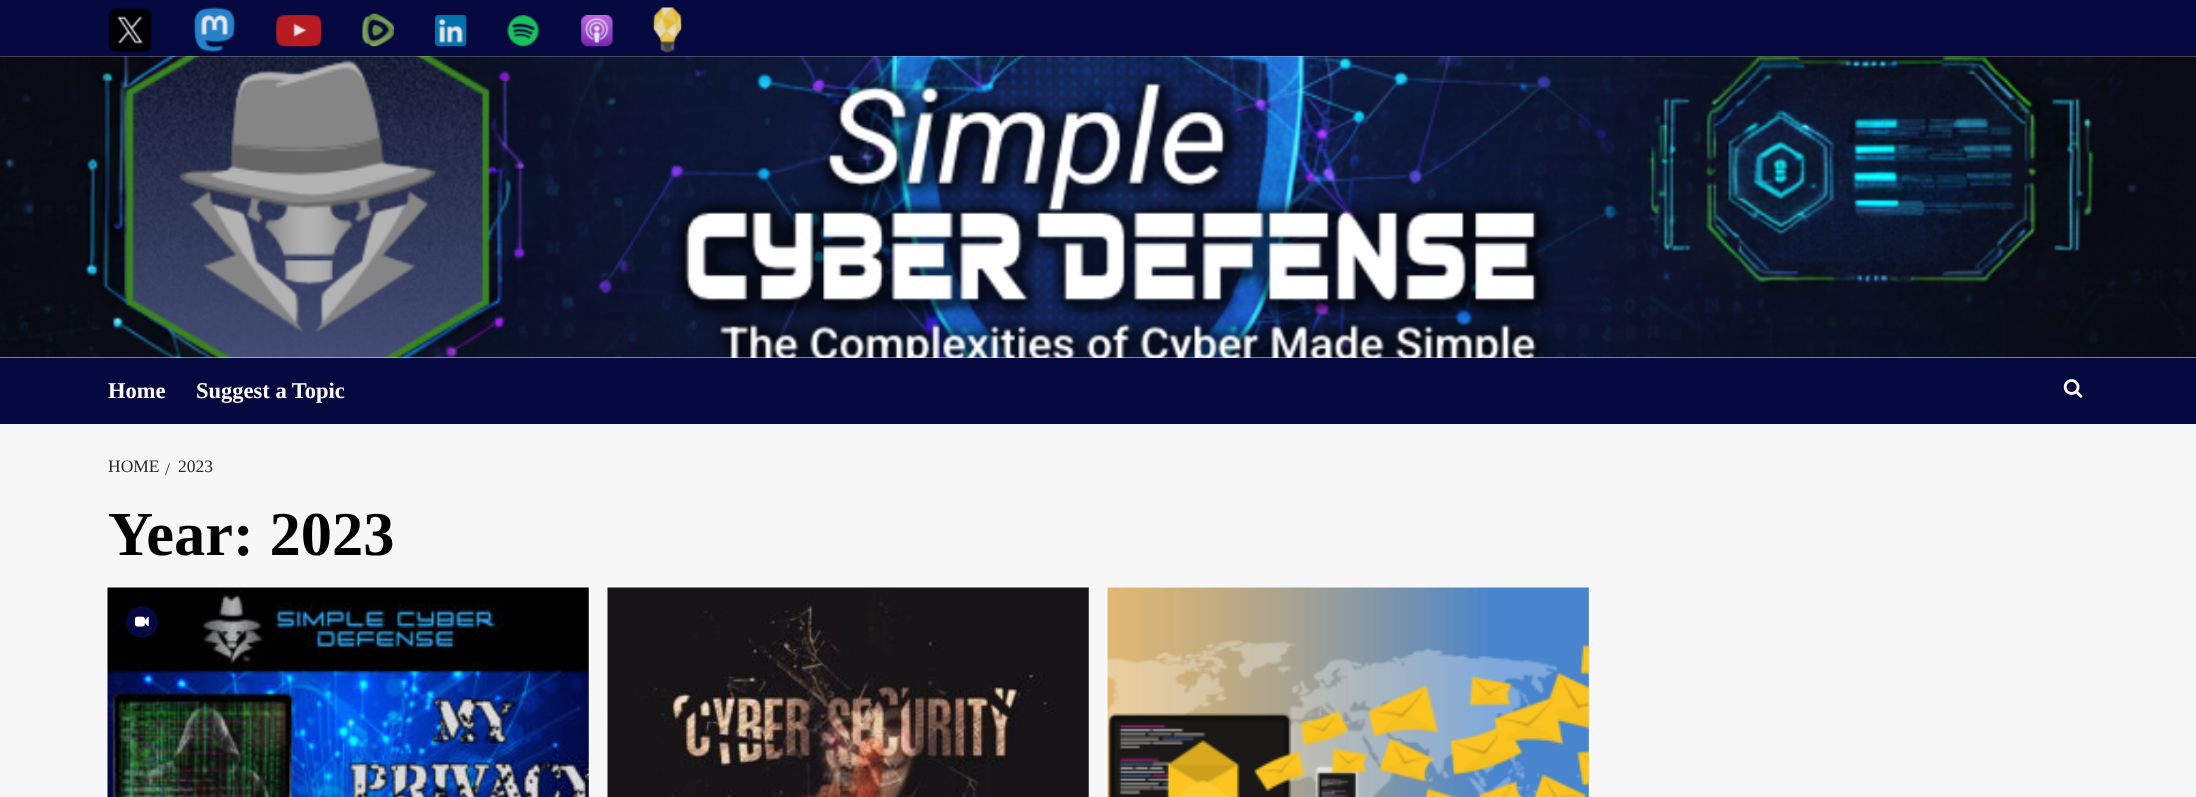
(async () => {
  const canvas = document.querySelector("canvas");
  canvas.width = 2196;
  canvas.height = 797;
  const ctx = canvas.getContext("2d");
  ctx.miterLimit = 4;
  ctx.fontKerning = "normal";
  async function loadImage(src) {
    const img = new Image();
    img.src = src;
    await img.decode();
    return img;
  }

  ctx.fillStyle = "#f7f7f7";
  ctx.fillRect(0, 0, 2196, 797);
  ctx.fillStyle = "#060940";
  ctx.fillRect(0, 0, 2196, 56);
  ctx.drawImage(await loadImage("img/1.png"), 108, 7, 44, 46);
  ctx.drawImage(await loadImage("img/2.png"), 193, 7, 42, 45);
  ctx.drawImage(await loadImage("img/3.png"), 276, 15, 46, 32);
  ctx.drawImage(await loadImage("img/4.png"), 362, 13, 32, 34);
  ctx.drawImage(await loadImage("img/5.png"), 435, 15, 32, 32);
  ctx.drawImage(await loadImage("img/6.png"), 507, 15, 32, 32);
  ctx.drawImage(await loadImage("img/7.png"), 581, 15, 32, 32);
  ctx.drawImage(await loadImage("img/8.png"), 653, 7, 29, 46);
  ctx.drawImage(await loadImage("img/9.png"), 0, 56, 2196, 302);
  ctx.fillRect(0, 358, 2196, 66);
  ctx.drawImage(await loadImage("img/10.png"), 2063, 379, 20, 19);
  ctx.drawImage(await loadImage("img/11.png"), 107, 587, 482, 210);
  ctx.beginPath();
  ctx.arc(142, 622, 16, 0, Math.PI * 2);
  ctx.fill();
  ctx.drawImage(await loadImage("img/12.png"), 135, 616, 14, 11);
  ctx.drawImage(await loadImage("img/13.png"), 607, 587, 482, 210);
  ctx.fillStyle = "#d8d8d8";
  ctx.fillRect(1108, 588, 481, 209);
  ctx.drawImage(await loadImage("img/14.png"), 1107, 587, 482, 210);
  ctx.font = "bold 22.5px Liberation Serif";
  ctx.fillStyle = "#ffffff";
  ctx.fillText("Home", 108, 398);
  ctx.fillText("Suggest a Topic", 196, 398);
  ctx.font = "17.5px Liberation Serif";
  ctx.fillStyle = "#2a2a2a";
  for (const [text, x, y] of [
    ["HOME", 108, 472],
    ["/", 165, 475],
    ["2023", 178, 472],
  ]) {
    ctx.fillText(text, x, y);
  }
  ctx.font = "bold 62.5px Liberation Serif";
  ctx.fillStyle = "#000000";
  ctx.fillText("Year: 2023", 108, 555);
})();
